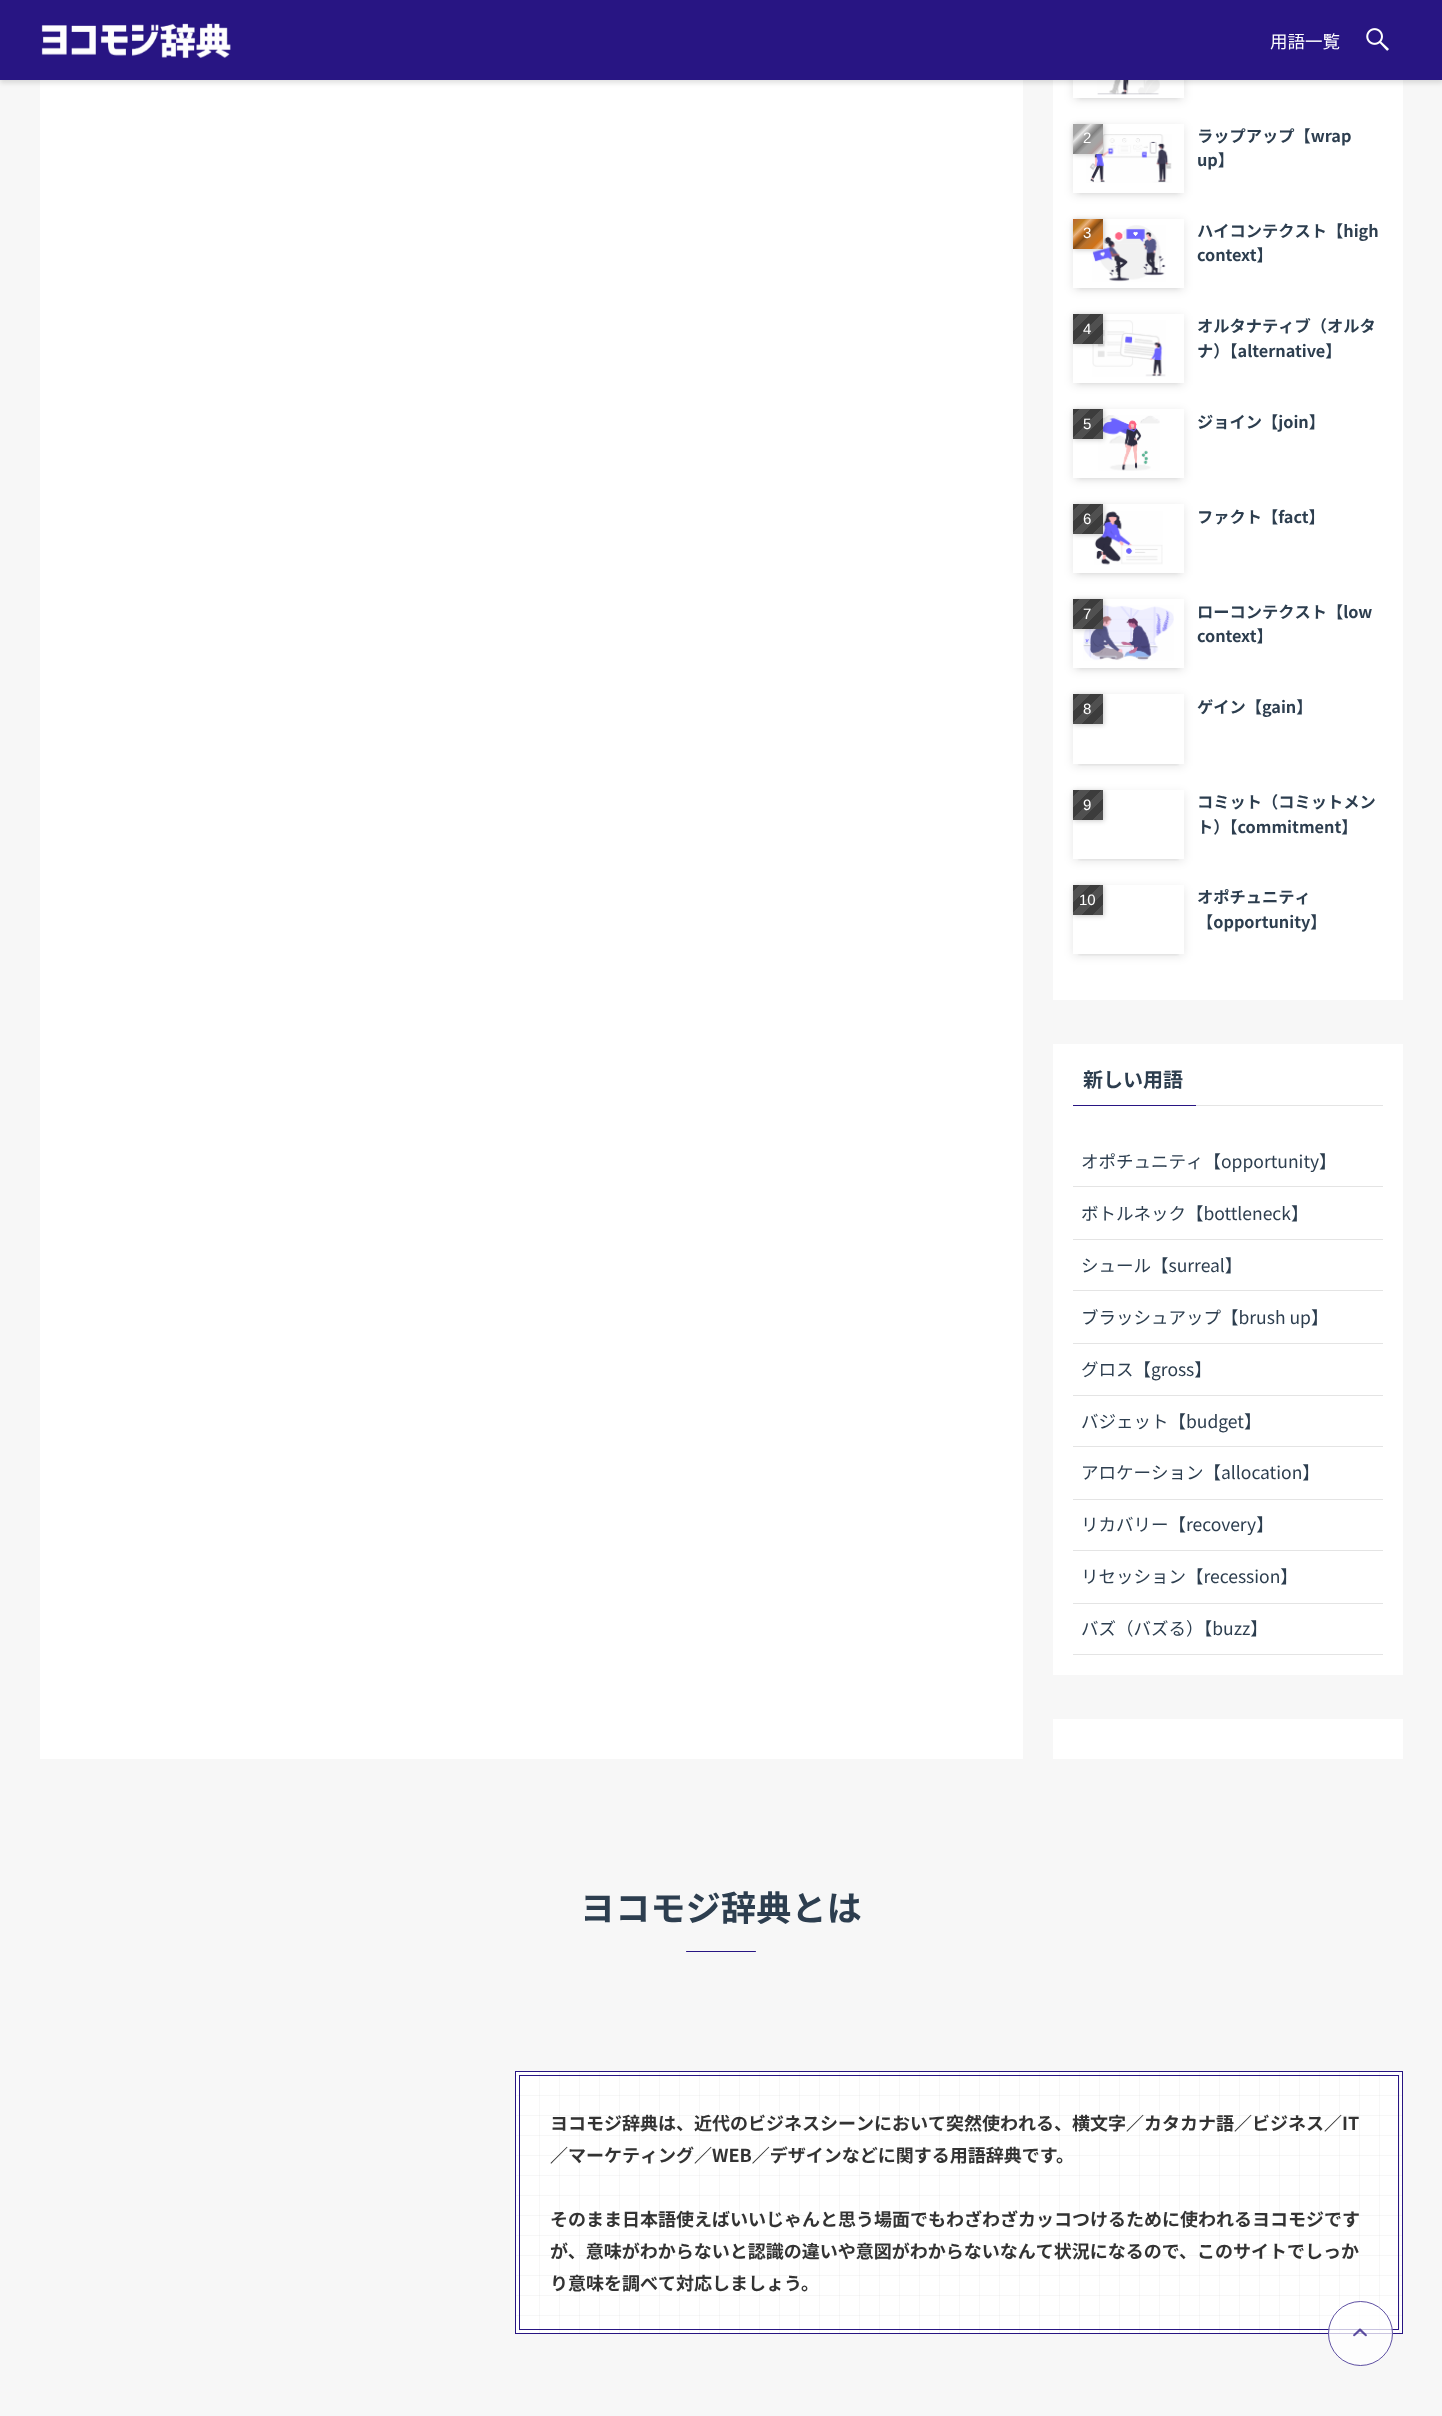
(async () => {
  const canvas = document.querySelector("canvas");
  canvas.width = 1442;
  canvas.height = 2416;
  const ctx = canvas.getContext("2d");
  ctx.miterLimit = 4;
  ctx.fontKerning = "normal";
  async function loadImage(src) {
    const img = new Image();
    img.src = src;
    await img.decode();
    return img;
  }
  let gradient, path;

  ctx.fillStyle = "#f7f7f7";
  ctx.fillRect(0, 0, 1442, 2416);
  ctx.fillStyle = "#ffffff";
  ctx.fillRect(40, 80, 983, 1679);
  ctx.fillRect(1053, 80, 350, 920);
  ctx.save();
  path = new Path2D("M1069 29H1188V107H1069ZM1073 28H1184V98H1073Z");
  ctx.clip(path, "evenodd");
  ctx.fillStyle = "rgba(0, 0, 0, 0.1)";
  ctx.filter = "blur(2.5px)";
  ctx.beginPath();
  ctx.rect(1078, 38, 101, 60);
  ctx.fill();
  ctx.filter = "none";
  ctx.restore();
  ctx.save();
  path = new Path2D("M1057 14H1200V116H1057ZM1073 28H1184V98H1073Z");
  ctx.clip(path, "evenodd");
  ctx.fillStyle = "rgba(0, 0, 0, 0.1)";
  ctx.filter = "blur(5px)";
  ctx.beginPath();
  ctx.rect(1073, 30, 111, 70);
  ctx.fill();
  ctx.filter = "none";
  ctx.restore();
  ctx.drawImage(await loadImage("img/3.png"), 1097, 80, 63, 15);
  ctx.fillStyle = "rgba(0, 0, 0, 0.12)";
  ctx.filter = "blur(2.5px)";
  ctx.beginPath();
  ctx.rect(0, 3, 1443, 80);
  ctx.fill();
  ctx.filter = "none";
  ctx.fillStyle = "#281583";
  ctx.fillRect(0, 0, 1442, 80);
  ctx.drawImage(await loadImage("img/1.png"), 41, 23, 190, 36);
  ctx.drawImage(await loadImage("img/2.png"), 1366, 28, 23, 23);
  ctx.save();
  path = new Path2D("M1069 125H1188V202H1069ZM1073 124H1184V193H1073Z");
  ctx.clip(path, "evenodd");
  ctx.fillStyle = "rgba(0, 0, 0, 0.1)";
  ctx.filter = "blur(2.5px)";
  ctx.beginPath();
  ctx.rect(1078, 134, 101, 59);
  ctx.fill();
  ctx.filter = "none";
  ctx.restore();
  ctx.save();
  path = new Path2D("M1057 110H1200V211H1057ZM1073 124H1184V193H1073Z");
  ctx.clip(path, "evenodd");
  ctx.fillStyle = "rgba(0, 0, 0, 0.1)";
  ctx.filter = "blur(5px)";
  ctx.beginPath();
  ctx.rect(1073, 126, 111, 69);
  ctx.fill();
  ctx.filter = "none";
  ctx.restore();
  ctx.drawImage(await loadImage("img/4.png"), 1086, 134, 86, 49);
  ctx.fillStyle = "rgba(0, 0, 0, 0.2)";
  ctx.filter = "blur(2.5px)";
  ctx.beginPath();
  ctx.rect(1074, 125, 30, 30);
  ctx.fill();
  ctx.filter = "none";
  gradient = ctx.createLinearGradient(1103, 154, 1073, 124);
  gradient.addColorStop(0, "#a5a5a5");
  gradient.addColorStop(0.1, "#e5e5e5");
  gradient.addColorStop(0.2, "#ae9c9c");
  gradient.addColorStop(0.3, "#a5a5a5");
  gradient.addColorStop(0.4, "#a5a5a5");
  gradient.addColorStop(0.5, "#7f7f7f");
  gradient.addColorStop(0.6, "#a5a5a5");
  gradient.addColorStop(0.7, "#e5e5e5");
  gradient.addColorStop(0.8, "#a5a5a5");
  gradient.addColorStop(1, "#a5a5a5");
  ctx.fillStyle = gradient;
  ctx.fillRect(1073, 124, 30, 30);
  ctx.save();
  path = new Path2D("M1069 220H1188V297H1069ZM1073 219H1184V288H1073Z");
  ctx.clip(path, "evenodd");
  ctx.fillStyle = "rgba(0, 0, 0, 0.1)";
  ctx.filter = "blur(2.5px)";
  ctx.beginPath();
  ctx.rect(1078, 229, 101, 59);
  ctx.fill();
  ctx.filter = "none";
  ctx.restore();
  ctx.save();
  path = new Path2D("M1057 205H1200V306H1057ZM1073 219H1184V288H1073Z");
  ctx.clip(path, "evenodd");
  ctx.fillStyle = "rgba(0, 0, 0, 0.1)";
  ctx.filter = "blur(5px)";
  ctx.beginPath();
  ctx.rect(1073, 221, 111, 69);
  ctx.fill();
  ctx.filter = "none";
  ctx.restore();
  ctx.drawImage(await loadImage("img/5.png"), 1092, 225, 74, 57);
  ctx.fillStyle = "rgba(0, 0, 0, 0.2)";
  ctx.filter = "blur(2.5px)";
  ctx.beginPath();
  ctx.rect(1074, 220, 30, 30);
  ctx.fill();
  ctx.filter = "none";
  gradient = ctx.createLinearGradient(1103, 249, 1073, 219);
  gradient.addColorStop(0, "#c46522");
  gradient.addColorStop(0.1, "#e8b27d");
  gradient.addColorStop(0.2, "#d07217");
  gradient.addColorStop(0.3, "#c47222");
  gradient.addColorStop(0.4, "#b9722e");
  gradient.addColorStop(0.5, "#834c17");
  gradient.addColorStop(0.6, "#c47222");
  gradient.addColorStop(0.7, "#e8b27d");
  gradient.addColorStop(0.8, "#c48022");
  gradient.addColorStop(0.9, "#b9722e");
  gradient.addColorStop(1, "#c46522");
  ctx.fillStyle = gradient;
  ctx.fillRect(1073, 219, 30, 30);
  ctx.save();
  path = new Path2D("M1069 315H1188V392H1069ZM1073 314H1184V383H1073Z");
  ctx.clip(path, "evenodd");
  ctx.fillStyle = "rgba(0, 0, 0, 0.1)";
  ctx.filter = "blur(2.5px)";
  ctx.beginPath();
  ctx.rect(1078, 324, 101, 59);
  ctx.fill();
  ctx.filter = "none";
  ctx.restore();
  ctx.save();
  path = new Path2D("M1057 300H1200V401H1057ZM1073 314H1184V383H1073Z");
  ctx.clip(path, "evenodd");
  ctx.fillStyle = "rgba(0, 0, 0, 0.1)";
  ctx.filter = "blur(5px)";
  ctx.beginPath();
  ctx.rect(1073, 316, 111, 69);
  ctx.fill();
  ctx.filter = "none";
  ctx.restore();
  ctx.drawImage(await loadImage("img/6.png"), 1092, 320, 74, 57);
  ctx.fillStyle = "rgba(0, 0, 0, 0.2)";
  ctx.filter = "blur(2.5px)";
  ctx.beginPath();
  ctx.rect(1074, 315, 30, 30);
  ctx.fill();
  ctx.filter = "none";
  gradient = ctx.createLinearGradient(1103, 344, 1071, 312);
  gradient.addColorStop(0, "#505050");
  gradient.addColorStop(0.17, "#505050");
  gradient.addColorStop(0.17, "#3c3c3c");
  gradient.addColorStop(0.33, "#3c3c3c");
  gradient.addColorStop(0.33, "#505050");
  gradient.addColorStop(0.5, "#505050");
  gradient.addColorStop(0.5, "#3c3c3c");
  gradient.addColorStop(0.67, "#3c3c3c");
  gradient.addColorStop(0.67, "#505050");
  gradient.addColorStop(0.83, "#505050");
  gradient.addColorStop(0.83, "#3c3c3c");
  gradient.addColorStop(1, "#3c3c3c");
  ctx.fillStyle = gradient;
  ctx.fillRect(1073, 314, 30, 30);
  ctx.save();
  path = new Path2D("M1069 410H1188V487H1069ZM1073 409H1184V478H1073Z");
  ctx.clip(path, "evenodd");
  ctx.fillStyle = "rgba(0, 0, 0, 0.1)";
  ctx.filter = "blur(2.5px)";
  ctx.beginPath();
  ctx.rect(1078, 419, 101, 59);
  ctx.fill();
  ctx.filter = "none";
  ctx.restore();
  ctx.save();
  path = new Path2D("M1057 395H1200V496H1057ZM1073 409H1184V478H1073Z");
  ctx.clip(path, "evenodd");
  ctx.fillStyle = "rgba(0, 0, 0, 0.1)";
  ctx.filter = "blur(5px)";
  ctx.beginPath();
  ctx.rect(1073, 411, 111, 69);
  ctx.fill();
  ctx.filter = "none";
  ctx.restore();
  ctx.drawImage(await loadImage("img/7.png"), 1098, 415, 62, 56);
  ctx.fillStyle = "rgba(0, 0, 0, 0.2)";
  ctx.filter = "blur(2.5px)";
  ctx.beginPath();
  ctx.rect(1074, 410, 30, 30);
  ctx.fill();
  ctx.filter = "none";
  gradient = ctx.createLinearGradient(1103, 439, 1071, 407);
  gradient.addColorStop(0, "#505050");
  gradient.addColorStop(0.17, "#505050");
  gradient.addColorStop(0.17, "#3c3c3c");
  gradient.addColorStop(0.33, "#3c3c3c");
  gradient.addColorStop(0.33, "#505050");
  gradient.addColorStop(0.5, "#505050");
  gradient.addColorStop(0.5, "#3c3c3c");
  gradient.addColorStop(0.67, "#3c3c3c");
  gradient.addColorStop(0.67, "#505050");
  gradient.addColorStop(0.83, "#505050");
  gradient.addColorStop(0.83, "#3c3c3c");
  gradient.addColorStop(1, "#3c3c3c");
  ctx.fillStyle = gradient;
  ctx.fillRect(1073, 409, 30, 30);
  ctx.save();
  path = new Path2D("M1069 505H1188V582H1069ZM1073 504H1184V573H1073Z");
  ctx.clip(path, "evenodd");
  ctx.fillStyle = "rgba(0, 0, 0, 0.1)";
  ctx.filter = "blur(2.5px)";
  ctx.beginPath();
  ctx.rect(1078, 514, 101, 59);
  ctx.fill();
  ctx.filter = "none";
  ctx.restore();
  ctx.save();
  path = new Path2D("M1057 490H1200V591H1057ZM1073 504H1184V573H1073Z");
  ctx.clip(path, "evenodd");
  ctx.fillStyle = "rgba(0, 0, 0, 0.1)";
  ctx.filter = "blur(5px)";
  ctx.beginPath();
  ctx.rect(1073, 506, 111, 69);
  ctx.fill();
  ctx.filter = "none";
  ctx.restore();
  ctx.drawImage(await loadImage("img/8.png"), 1094, 511, 69, 54);
  ctx.fillStyle = "rgba(0, 0, 0, 0.2)";
  ctx.filter = "blur(2.5px)";
  ctx.beginPath();
  ctx.rect(1074, 505, 30, 30);
  ctx.fill();
  ctx.filter = "none";
  gradient = ctx.createLinearGradient(1103, 534, 1071, 502);
  gradient.addColorStop(0, "#505050");
  gradient.addColorStop(0.17, "#505050");
  gradient.addColorStop(0.17, "#3c3c3c");
  gradient.addColorStop(0.33, "#3c3c3c");
  gradient.addColorStop(0.33, "#505050");
  gradient.addColorStop(0.5, "#505050");
  gradient.addColorStop(0.5, "#3c3c3c");
  gradient.addColorStop(0.67, "#3c3c3c");
  gradient.addColorStop(0.67, "#505050");
  gradient.addColorStop(0.83, "#505050");
  gradient.addColorStop(0.83, "#3c3c3c");
  gradient.addColorStop(1, "#3c3c3c");
  ctx.fillStyle = gradient;
  ctx.fillRect(1073, 504, 30, 30);
  ctx.save();
  path = new Path2D("M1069 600H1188V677H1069ZM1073 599H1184V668H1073Z");
  ctx.clip(path, "evenodd");
  ctx.fillStyle = "rgba(0, 0, 0, 0.1)";
  ctx.filter = "blur(2.5px)";
  ctx.beginPath();
  ctx.rect(1078, 609, 101, 59);
  ctx.fill();
  ctx.filter = "none";
  ctx.restore();
  ctx.save();
  path = new Path2D("M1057 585H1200V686H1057ZM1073 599H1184V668H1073Z");
  ctx.clip(path, "evenodd");
  ctx.fillStyle = "rgba(0, 0, 0, 0.1)";
  ctx.filter = "blur(5px)";
  ctx.beginPath();
  ctx.rect(1073, 601, 111, 69);
  ctx.fill();
  ctx.filter = "none";
  ctx.restore();
  ctx.drawImage(await loadImage("img/9.png"), 1083, 605, 91, 56);
  ctx.fillStyle = "rgba(0, 0, 0, 0.2)";
  ctx.filter = "blur(2.5px)";
  ctx.beginPath();
  ctx.rect(1074, 600, 30, 30);
  ctx.fill();
  ctx.filter = "none";
  gradient = ctx.createLinearGradient(1103, 629, 1071, 597);
  gradient.addColorStop(0, "#505050");
  gradient.addColorStop(0.17, "#505050");
  gradient.addColorStop(0.17, "#3c3c3c");
  gradient.addColorStop(0.33, "#3c3c3c");
  gradient.addColorStop(0.33, "#505050");
  gradient.addColorStop(0.5, "#505050");
  gradient.addColorStop(0.5, "#3c3c3c");
  gradient.addColorStop(0.67, "#3c3c3c");
  gradient.addColorStop(0.67, "#505050");
  gradient.addColorStop(0.83, "#505050");
  gradient.addColorStop(0.83, "#3c3c3c");
  gradient.addColorStop(1, "#3c3c3c");
  ctx.fillStyle = gradient;
  ctx.fillRect(1073, 599, 30, 30);
  ctx.fillStyle = "rgba(0, 0, 0, 0.2)";
  ctx.filter = "blur(2.5px)";
  ctx.beginPath();
  ctx.rect(1074, 695, 30, 30);
  ctx.fill();
  ctx.filter = "none";
  ctx.save();
  ctx.beginPath();
  ctx.rect(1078, 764, 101, 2);
  ctx.clip();
  ctx.fillStyle = "rgba(0, 0, 0, 0.1)";
  ctx.filter = "blur(2.5px)";
  ctx.beginPath();
  ctx.rect(1078, 704, 101, 60);
  ctx.fill();
  ctx.filter = "none";
  ctx.restore();
  ctx.save();
  path = new Path2D("M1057 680H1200V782H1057ZM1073 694H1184V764H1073Z");
  ctx.clip(path, "evenodd");
  ctx.fillStyle = "rgba(0, 0, 0, 0.1)";
  ctx.filter = "blur(5px)";
  ctx.beginPath();
  ctx.rect(1073, 696, 111, 70);
  ctx.fill();
  ctx.filter = "none";
  ctx.restore();
  gradient = ctx.createLinearGradient(1103, 724, 1071, 692);
  gradient.addColorStop(0, "#505050");
  gradient.addColorStop(0.17, "#505050");
  gradient.addColorStop(0.17, "#3c3c3c");
  gradient.addColorStop(0.33, "#3c3c3c");
  gradient.addColorStop(0.33, "#505050");
  gradient.addColorStop(0.5, "#505050");
  gradient.addColorStop(0.5, "#3c3c3c");
  gradient.addColorStop(0.67, "#3c3c3c");
  gradient.addColorStop(0.67, "#505050");
  gradient.addColorStop(0.83, "#505050");
  gradient.addColorStop(0.83, "#3c3c3c");
  gradient.addColorStop(1, "#3c3c3c");
  ctx.fillStyle = gradient;
  ctx.fillRect(1073, 694, 30, 30);
  ctx.fillStyle = "rgba(0, 0, 0, 0.2)";
  ctx.filter = "blur(2.5px)";
  ctx.beginPath();
  ctx.rect(1074, 791, 30, 30);
  ctx.fill();
  ctx.filter = "none";
  ctx.save();
  ctx.beginPath();
  ctx.rect(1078, 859, 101, 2);
  ctx.clip();
  ctx.fillStyle = "rgba(0, 0, 0, 0.1)";
  ctx.filter = "blur(2.5px)";
  ctx.beginPath();
  ctx.rect(1078, 800, 101, 59);
  ctx.fill();
  ctx.filter = "none";
  ctx.restore();
  ctx.save();
  path = new Path2D("M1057 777H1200V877H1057ZM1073 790H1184V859H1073Z");
  ctx.clip(path, "evenodd");
  ctx.fillStyle = "rgba(0, 0, 0, 0.1)";
  ctx.filter = "blur(5px)";
  ctx.beginPath();
  ctx.rect(1073, 793, 111, 68);
  ctx.fill();
  ctx.filter = "none";
  ctx.restore();
  gradient = ctx.createLinearGradient(1103, 820, 1071, 788);
  gradient.addColorStop(0, "#505050");
  gradient.addColorStop(0.17, "#505050");
  gradient.addColorStop(0.17, "#3c3c3c");
  gradient.addColorStop(0.33, "#3c3c3c");
  gradient.addColorStop(0.33, "#505050");
  gradient.addColorStop(0.5, "#505050");
  gradient.addColorStop(0.5, "#3c3c3c");
  gradient.addColorStop(0.67, "#3c3c3c");
  gradient.addColorStop(0.67, "#505050");
  gradient.addColorStop(0.83, "#505050");
  gradient.addColorStop(0.83, "#3c3c3c");
  gradient.addColorStop(1, "#3c3c3c");
  ctx.fillStyle = gradient;
  ctx.fillRect(1073, 790, 30, 30);
  ctx.fillStyle = "rgba(0, 0, 0, 0.2)";
  ctx.filter = "blur(2.5px)";
  ctx.beginPath();
  ctx.rect(1074, 886, 30, 30);
  ctx.fill();
  ctx.filter = "none";
  ctx.save();
  ctx.beginPath();
  ctx.rect(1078, 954, 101, 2);
  ctx.clip();
  ctx.fillStyle = "rgba(0, 0, 0, 0.1)";
  ctx.filter = "blur(2.5px)";
  ctx.beginPath();
  ctx.rect(1078, 895, 101, 59);
  ctx.fill();
  ctx.filter = "none";
  ctx.restore();
  ctx.save();
  path = new Path2D("M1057 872H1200V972H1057ZM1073 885H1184V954H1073Z");
  ctx.clip(path, "evenodd");
  ctx.fillStyle = "rgba(0, 0, 0, 0.1)";
  ctx.filter = "blur(5px)";
  ctx.beginPath();
  ctx.rect(1073, 888, 111, 68);
  ctx.fill();
  ctx.filter = "none";
  ctx.restore();
  gradient = ctx.createLinearGradient(1103, 915, 1071, 883);
  gradient.addColorStop(0, "#505050");
  gradient.addColorStop(0.17, "#505050");
  gradient.addColorStop(0.17, "#3c3c3c");
  gradient.addColorStop(0.33, "#3c3c3c");
  gradient.addColorStop(0.33, "#505050");
  gradient.addColorStop(0.5, "#505050");
  gradient.addColorStop(0.5, "#3c3c3c");
  gradient.addColorStop(0.67, "#3c3c3c");
  gradient.addColorStop(0.67, "#505050");
  gradient.addColorStop(0.83, "#505050");
  gradient.addColorStop(0.83, "#3c3c3c");
  gradient.addColorStop(1, "#3c3c3c");
  ctx.fillStyle = gradient;
  ctx.fillRect(1073, 885, 30, 30);
  for (const [x, y, w, h, color] of [
    [1053, 1044, 350, 631, "#ffffff"],
    [1073, 1105, 123, 1, "#281583"],
    [1196, 1105, 187, 1, "#e4e4e4"],
    [1073, 1186, 310, 1, "#e4e4e4"],
    [1073, 1239, 310, 1, "#e4e4e4"],
    [1073, 1290, 310, 1, "#e4e4e4"],
    [1073, 1343, 310, 1, "#e4e4e4"],
    [1073, 1395, 310, 1, "#e4e4e4"],
    [1073, 1446, 310, 1, "#e4e4e4"],
    [1073, 1499, 310, 1, "#e4e4e4"],
    [1073, 1550, 310, 1, "#e4e4e4"],
    [1073, 1603, 310, 1, "#e4e4e4"],
    [1073, 1654, 310, 1, "#e4e4e4"],
    [1053, 1719, 350, 40, "#ffffff"],
  ]) {
    ctx.fillStyle = color;
    ctx.fillRect(x, y, w, h);
  }
  ctx.fillStyle = "#281583";
  ctx.beginPath();
  ctx.roundRect(686, 1951, 70, 1, 0.5);
  ctx.fill();
  ctx.fillStyle = "#ffffff";
  ctx.fillRect(516, 2072, 886, 261);
  ctx.drawImage(await loadImage("img/10.png"), 519, 2072, 881, 261);
  for (const [x, y, w, h, color] of [
    [515, 2075, 888, 1, "rgba(200, 200, 200, 0.15)"],
    [515, 2095, 888, 1, "rgba(200, 200, 200, 0.15)"],
    [515, 2115, 888, 1, "rgba(200, 200, 200, 0.15)"],
    [515, 2135, 888, 1, "rgba(200, 200, 200, 0.15)"],
    [515, 2155, 888, 1, "rgba(200, 200, 200, 0.15)"],
    [515, 2175, 888, 1, "rgba(200, 200, 200, 0.15)"],
    [515, 2195, 888, 1, "rgba(200, 200, 200, 0.15)"],
    [515, 2215, 888, 1, "rgba(200, 200, 200, 0.15)"],
    [515, 2235, 888, 1, "rgba(200, 200, 200, 0.15)"],
    [515, 2255, 888, 1, "rgba(200, 200, 200, 0.15)"],
    [515, 2275, 888, 1, "rgba(200, 200, 200, 0.15)"],
    [515, 2295, 888, 1, "rgba(200, 200, 200, 0.15)"],
    [515, 2315, 888, 1, "rgba(200, 200, 200, 0.15)"],
  ]) {
    ctx.fillStyle = color;
    ctx.fillRect(x, y, w, h);
  }
  ctx.strokeStyle = "#281583";
  ctx.strokeRect(515.5, 2071.5, 887, 262);
  ctx.strokeRect(519.5, 2075.5, 879, 254);
  ctx.fillStyle = "rgba(255, 255, 255, 0.75)";
  ctx.beginPath();
  ctx.arc(1360.5, 2333.5, 32.5, 0, Math.PI * 2);
  ctx.fill();
  ctx.beginPath();
  ctx.arc(1360.5, 2333.5, 32, 0, Math.PI * 2);
  ctx.strokeStyle = "rgba(40, 21, 131, 0.75)";
  ctx.stroke();
  ctx.drawImage(await loadImage("img/11.png"), 1353, 2328, 14, 9);
  ctx.font = "17.5px Noto Sans JP";
  ctx.fillStyle = "#ffffff";
  ctx.fillText("用語一覧", 1270, 48);
  ctx.font = "15px Liberation Sans";
  ctx.fillText("2", 1083, 143);
  ctx.font = "bold 16.25px Noto Sans JP";
  ctx.fillStyle = "#2d3e4f";
  ctx.fillText("ラップアップ【wrap", 1197, 142);
  ctx.fillText("up】", 1197, 166);
  ctx.font = "15px Liberation Sans";
  ctx.fillStyle = "#ffffff";
  ctx.fillText("3", 1083, 238);
  ctx.font = "bold 16.25px Noto Sans JP";
  ctx.fillStyle = "#2d3e4f";
  ctx.fillText("ハイコンテクスト【high", 1197, 237);
  ctx.fillText("context】", 1197, 261);
  ctx.font = "15px Liberation Sans";
  ctx.fillStyle = "#ffffff";
  ctx.fillText("4", 1083, 334);
  ctx.font = "bold 16.25px Noto Sans JP";
  ctx.fillStyle = "#2d3e4f";
  ctx.fillText("オルタナティブ（オルタ", 1197, 332);
  ctx.fillText("ナ）【alternative】", 1197, 357);
  ctx.font = "15px Liberation Sans";
  ctx.fillStyle = "#ffffff";
  ctx.fillText("5", 1083, 429);
  ctx.font = "bold 16.25px Noto Sans JP";
  ctx.fillStyle = "#2d3e4f";
  ctx.fillText("ジョイン【join】", 1197, 428);
  ctx.font = "15px Liberation Sans";
  ctx.fillStyle = "#ffffff";
  ctx.fillText("6", 1083, 524);
  ctx.font = "bold 16.25px Noto Sans JP";
  ctx.fillStyle = "#2d3e4f";
  ctx.fillText("ファクト【fact】", 1197, 523);
  ctx.font = "15px Liberation Sans";
  ctx.fillStyle = "#ffffff";
  ctx.fillText("7", 1083, 619);
  ctx.font = "bold 16.25px Noto Sans JP";
  ctx.fillStyle = "#2d3e4f";
  ctx.fillText("ローコンテクスト【low", 1197, 618);
  ctx.fillText("context】", 1197, 642);
  ctx.font = "15px Liberation Sans";
  ctx.fillStyle = "#ffffff";
  ctx.fillText("8", 1083, 714);
  ctx.font = "bold 16.25px Noto Sans JP";
  ctx.fillStyle = "#2d3e4f";
  ctx.fillText("ゲイン【gain】", 1197, 713);
  ctx.font = "15px Liberation Sans";
  ctx.fillStyle = "#ffffff";
  ctx.fillText("9", 1083, 810);
  ctx.font = "bold 16.25px Noto Sans JP";
  ctx.fillStyle = "#2d3e4f";
  ctx.fillText("コミット（コミットメン", 1197, 808);
  ctx.fillText("ト）【commitment】", 1197, 833);
  ctx.font = "15px Liberation Sans";
  ctx.fillStyle = "#ffffff";
  ctx.fillText("10", 1079, 905);
  ctx.font = "bold 16.25px Noto Sans JP";
  ctx.fillStyle = "#2d3e4f";
  ctx.fillText("オポチュニティ", 1197, 903);
  ctx.fillText("【opportunity】", 1197, 928);
  ctx.font = "bold 20px Noto Sans JP";
  ctx.fillText("新しい用語", 1083, 1087);
  ctx.font = "17.5px Noto Sans JP";
  for (const [text, x, y] of [
    ["オポチュニティ【opportunity】", 1081, 1168],
    ["ボトルネック【bottleneck】", 1081, 1220],
    ["シュール【surreal】", 1081, 1272],
    ["ブラッシュアップ【brush up】", 1081, 1324],
    ["グロス【gross】", 1081, 1376],
    ["バジェット【budget】", 1081, 1428],
    ["アロケーション【allocation】", 1081, 1479],
    ["リカバリー【recovery】", 1081, 1531],
    ["リセッション【recession】", 1081, 1583],
    ["バズ（バズる）【buzz】", 1081, 1635],
  ]) {
    ctx.fillText(text, x, y);
  }
  ctx.letterSpacing = "0.25px";
  ctx.font = "bold 35px Noto Sans JP";
  ctx.fillText("ヨコモジ辞典とは", 580, 1921);
  ctx.letterSpacing = "0px";
  ctx.font = "bold 18px Noto Sans JP";
  ctx.fillStyle = "#333333";
  for (const [text, x, y] of [
    ["ヨコモジ辞典は、近代のビジネスシーンにおいて突然使われる、横文字／カタカナ語／ビジネス／IT", 550, 2130],
    ["／マーケティング／WEB／デザインなどに関する用語辞典です。", 550, 2162],
    ["そのまま日本語使えばいいじゃんと思う場面でもわざわざカッコつけるために使われるヨコモジです", 550, 2226],
    ["が、意味がわからないと認識の違いや意図がわからないなんて状況になるので、このサイトでしっか", 550, 2258],
    ["り意味を調べて対応しましょう。", 550, 2290],
  ]) {
    ctx.fillText(text, x, y);
  }
})();
